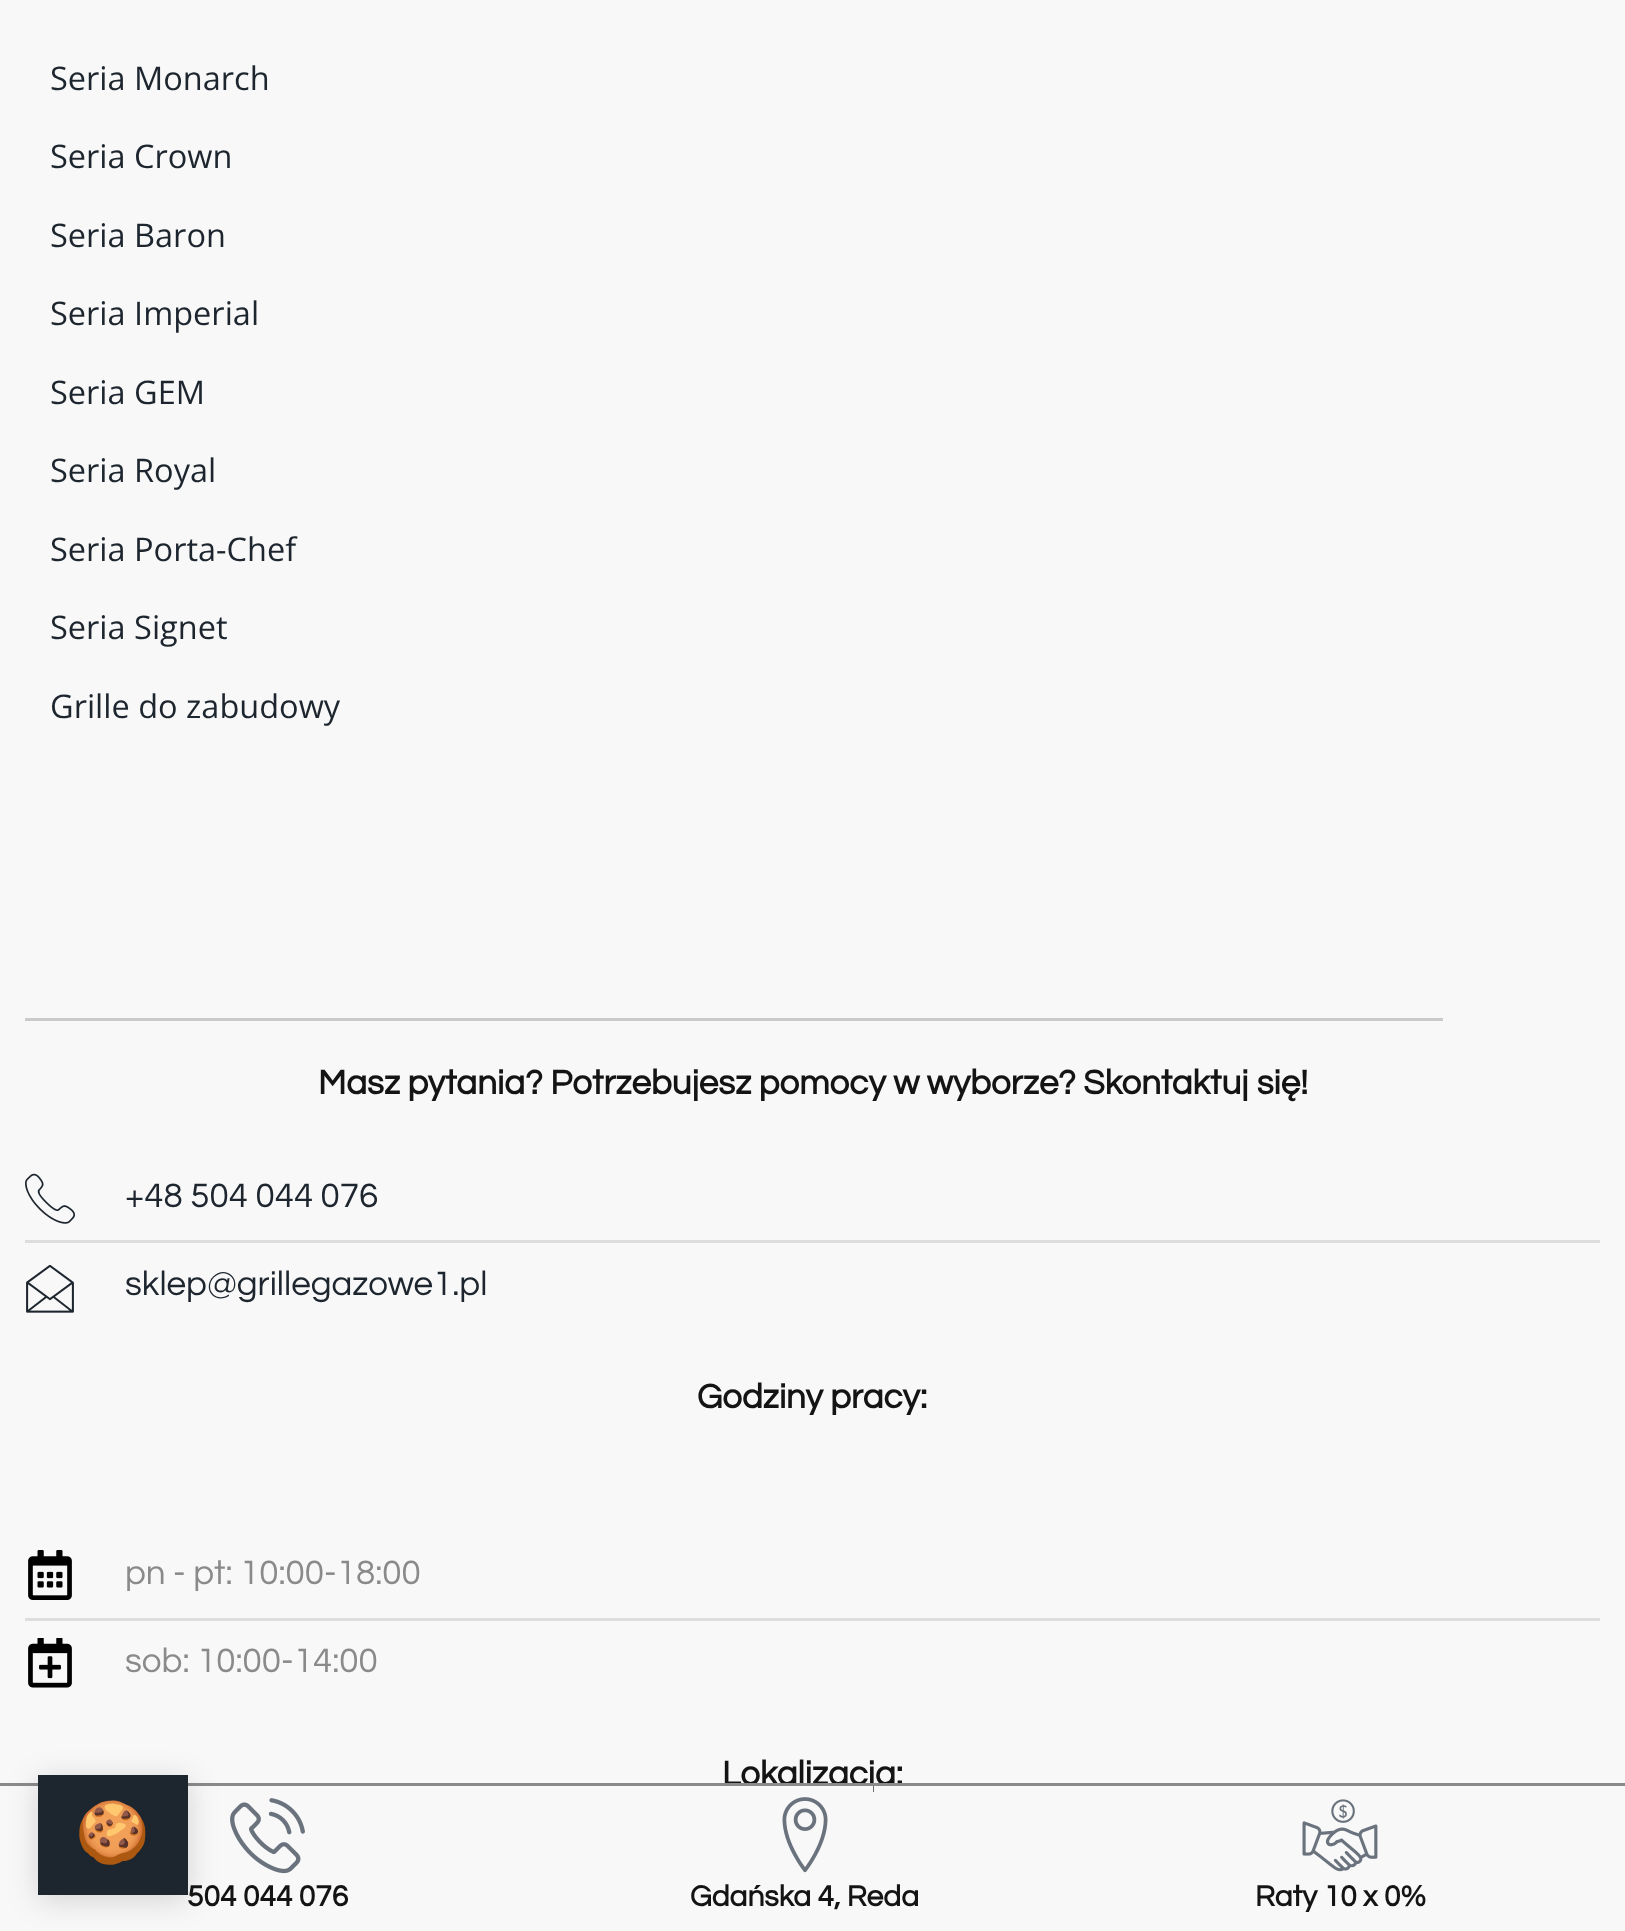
(async () => {
  const canvas = document.querySelector("canvas");
  canvas.width = 1625;
  canvas.height = 1931;
  const ctx = canvas.getContext("2d");
  ctx.miterLimit = 4;
  ctx.fontKerning = "normal";
  async function loadImage(src) {
    const img = new Image();
    img.src = src;
    await img.decode();
    return img;
  }

  ctx.fillStyle = "#f8f8f8";
  ctx.fillRect(0, 0, 1625, 1931);
  ctx.fillStyle = "#cacaca";
  ctx.fillRect(25, 1018, 1418, 3);
  ctx.drawImage(await loadImage("img/1.png"), 25, 1173, 50, 51);
  ctx.fillStyle = "#dddddd";
  ctx.fillRect(25, 1240, 1575, 3);
  ctx.drawImage(await loadImage("img/2.png"), 26, 1264, 48, 49);
  ctx.drawImage(await loadImage("img/3.png"), 28, 1550, 44, 50);
  ctx.fillRect(25, 1618, 1575, 3);
  ctx.drawImage(await loadImage("img/4.png"), 28, 1638, 44, 50);
  ctx.drawImage(await loadImage("img/5.png"), 230, 1798, 75, 76);
  ctx.drawImage(await loadImage("img/6.png"), 782, 1797, 46, 76);
  ctx.drawImage(await loadImage("img/7.png"), 1302, 1799, 76, 73);
  ctx.font = "32.5px Open Sans";
  ctx.fillStyle = "#1d252e";
  for (const [text, x, y] of [
    ["Seria Monarch", 50, 90],
    ["Seria Crown", 50, 168],
    ["Seria Baron", 50, 247],
    ["Seria Imperial", 50, 325],
    ["Seria GEM", 50, 404],
    ["Seria Royal", 50, 482],
    ["Seria Porta-Chef", 50, 561],
    ["Seria Signet", 50, 639],
    ["Grille do zabudowy", 50, 718],
  ]) {
    ctx.fillText(text, x, y);
  }
  ctx.font = "bold 35px Questrial";
  ctx.fillStyle = "#141414";
  ctx.fillText("Masz pytania? Potrzebujesz pomocy w wyborze? Skontaktuj się!", 318, 1094);
  ctx.font = "35px Questrial";
  ctx.fillStyle = "#1d252e";
  ctx.fillText("+48 504 044 076", 125, 1207);
  ctx.fillText("sklep@grillegazowe1.pl", 125, 1295);
  ctx.font = "bold 35px Questrial";
  ctx.fillStyle = "#141414";
  ctx.fillText("Godziny pracy:", 697, 1408);
  ctx.font = "35px Questrial";
  ctx.fillStyle = "#8a8a8a";
  ctx.fillText("pn - pt: 10:00-18:00", 125, 1584);
  ctx.fillText("sob: 10:00-14:00", 125, 1672);
  ctx.font = "bold 35px Questrial";
  ctx.fillStyle = "#141414";
  ctx.fillText("Lokalizacja:", 722, 1785);
  ctx.fillStyle = "#f8f8f8";
  ctx.fillRect(870, 1786, 3, 6);
  ctx.fillStyle = "#8a8a8a";
  ctx.fillRect(0, 1783, 1625, 3);
  ctx.font = "bold 30px Questrial";
  ctx.fillStyle = "#141414";
  for (const [text, x, y] of [
    ["504 044 076", 187, 1906],
    ["Gdańska 4, Reda", 690, 1906],
    ["Raty 10 x 0%", 1255, 1906],
  ]) {
    ctx.fillText(text, x, y);
  }
  ctx.fillStyle = "rgba(0, 0, 0, 0.15)";
  ctx.filter = "blur(15px)";
  ctx.beginPath();
  ctx.rect(38, 1780, 150, 120);
  ctx.fill();
  ctx.filter = "none";
  ctx.fillStyle = "#1d252e";
  ctx.fillRect(38, 1775, 150, 120);
  ctx.font = "60px Noto Color Emoji";
  ctx.fillStyle = "#ffffff";
  ctx.fillText("🍪", 75, 1853);
})();
